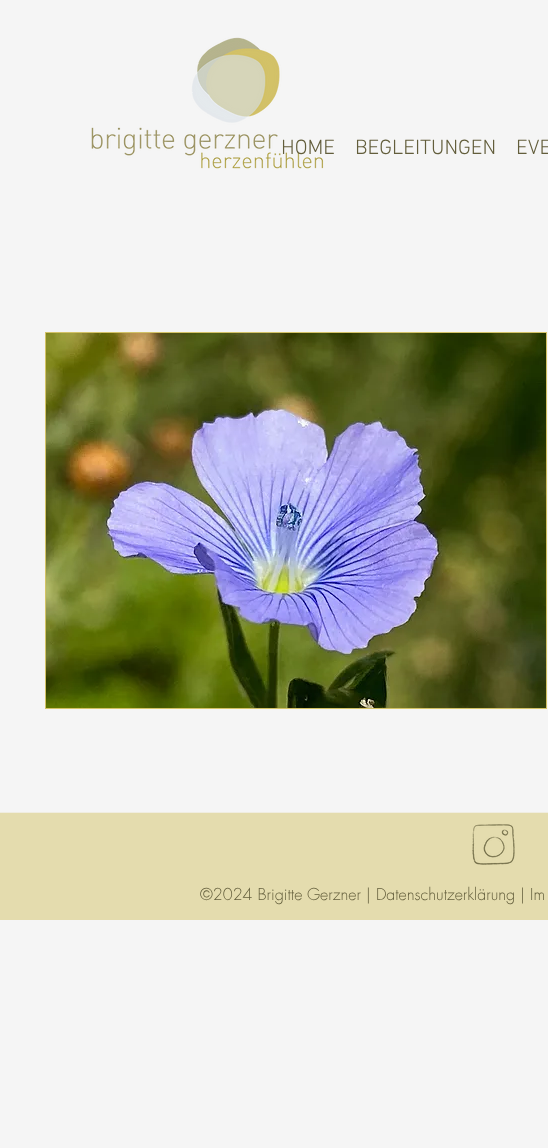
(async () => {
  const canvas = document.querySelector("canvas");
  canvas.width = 548;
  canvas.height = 1148;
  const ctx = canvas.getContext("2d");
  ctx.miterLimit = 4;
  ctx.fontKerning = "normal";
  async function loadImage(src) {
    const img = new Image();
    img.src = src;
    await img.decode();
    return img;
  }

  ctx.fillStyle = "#f5f5f5";
  ctx.fillRect(0, 0, 548, 1148);
  ctx.drawImage(await loadImage("img/1.png"), 91, 37, 233, 132);
  ctx.strokeStyle = "#d3c267";
  ctx.strokeRect(45.5, 332.5, 501, 376);
  ctx.drawImage(await loadImage("img/2.png"), 46, 333, 500, 375);
  ctx.fillStyle = "#f0ede0";
  ctx.fillRect(0, 812, 548, 1);
  ctx.fillStyle = "#e4dcae";
  ctx.fillRect(0, 813, 548, 107);
  ctx.drawImage(await loadImage("img/3.png"), 472, 824, 43, 41);
  ctx.font = "300 21px 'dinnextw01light'";
  ctx.fillStyle = "#635e3c";
  for (const [text, x, y] of [
    ["HOME", 281, 154],
    ["BEGLEITUNGEN", 355, 154],
    ["EVE", 516, 154],
  ]) {
    ctx.fillText(text, x, y);
  }
  ctx.font = "300 16px futura";
  ctx.fillText("©2024 Brigitte Gerzner | Datenschutzerklärung", 200, 900);
  ctx.fillText("| Im", 520, 900);
})();
